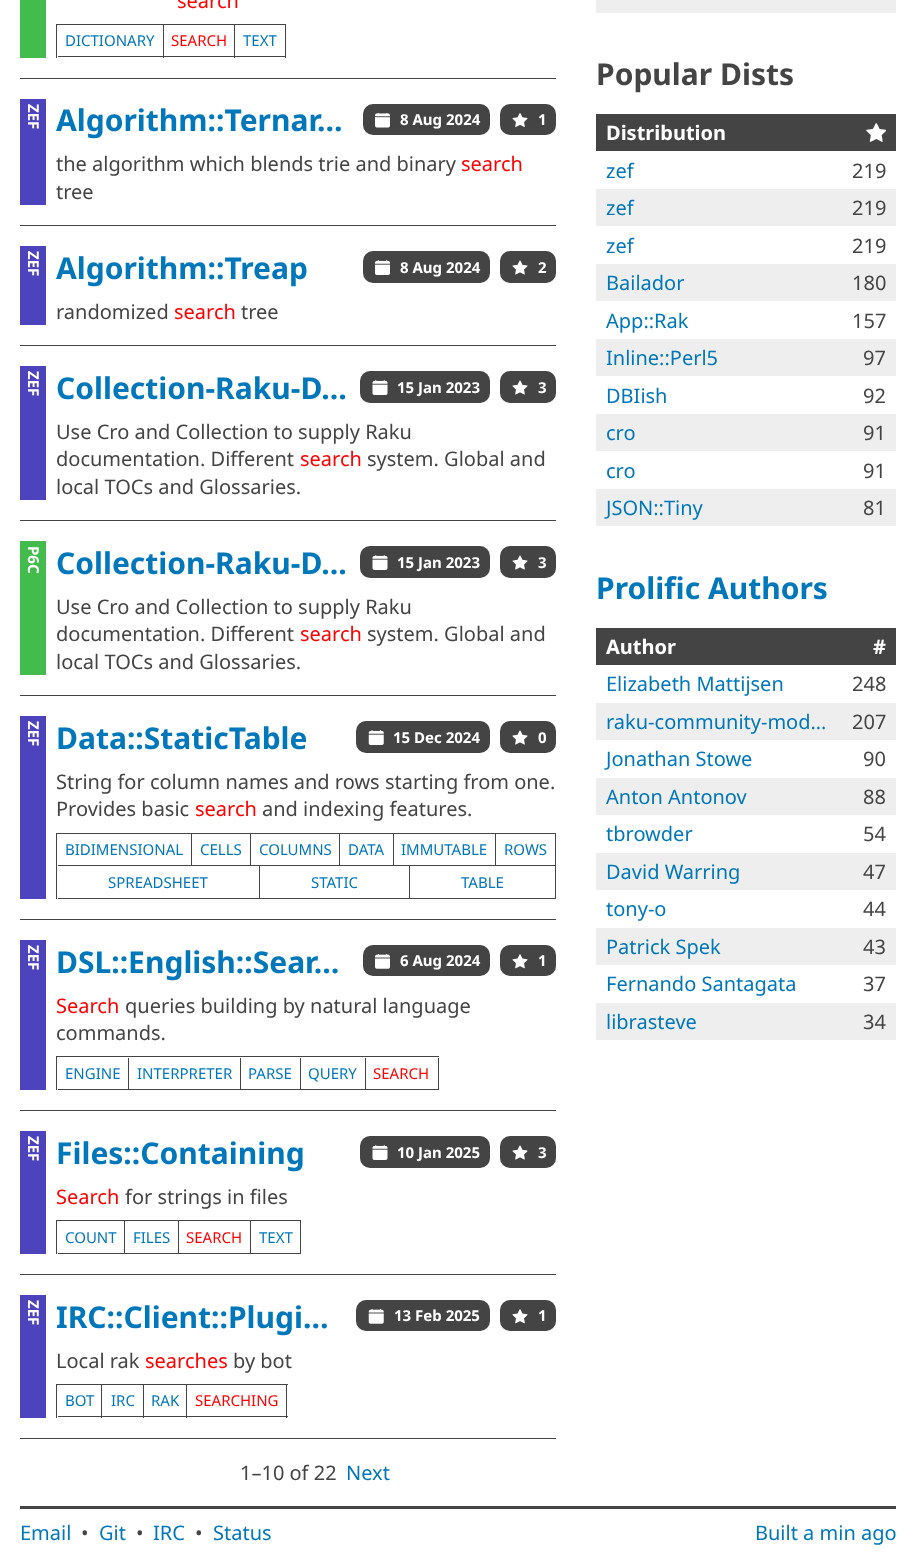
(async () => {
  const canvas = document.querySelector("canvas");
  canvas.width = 916;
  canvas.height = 1556;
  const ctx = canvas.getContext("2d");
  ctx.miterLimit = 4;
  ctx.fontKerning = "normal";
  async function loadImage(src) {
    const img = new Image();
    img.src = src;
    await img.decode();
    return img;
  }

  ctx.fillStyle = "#ffffff";
  ctx.fillRect(0, 0, 916, 1556);
  for (const [x, y, w, h, color] of [
    [20, 78, 536, 1, "#444444"],
    [20, 0, 26, 58, "#43bc4d"],
    [56, 24, 230, 1, "#444444"],
    [56, 24, 1, 34, "#444444"],
    [163, 25, 1, 33, "#444444"],
    [58, 56, 106, 1, "#444444"],
    [234, 25, 1, 33, "#444444"],
    [164, 56, 71, 1, "#444444"],
    [285, 25, 1, 33, "#444444"],
    [235, 56, 51, 1, "#444444"],
    [20, 225, 536, 1, "#444444"],
    [20, 99, 26, 106, "#4d43bc"],
  ]) {
    ctx.fillStyle = color;
    ctx.fillRect(x, y, w, h);
  }
  ctx.fillStyle = "#444444";
  ctx.beginPath();
  ctx.roundRect(363, 104, 127, 31, 10);
  ctx.fill();
  ctx.drawImage(await loadImage("img/1.png"), 375, 113, 15, 15);
  ctx.beginPath();
  ctx.roundRect(500, 104, 56, 31, 10);
  ctx.fill();
  ctx.drawImage(await loadImage("img/2.png"), 512, 113, 16, 14);
  ctx.fillRect(20, 345, 536, 1);
  ctx.fillStyle = "#4d43bc";
  ctx.fillRect(20, 246, 26, 79);
  ctx.fillStyle = "#444444";
  ctx.beginPath();
  ctx.roundRect(363, 251, 127, 32, 10);
  ctx.fill();
  ctx.drawImage(await loadImage("img/3.png"), 375, 260, 15, 15);
  ctx.beginPath();
  ctx.roundRect(500, 251, 56, 32, 10);
  ctx.fill();
  ctx.drawImage(await loadImage("img/4.png"), 512, 260, 16, 15);
  ctx.fillRect(20, 520, 536, 1);
  ctx.fillStyle = "#4d43bc";
  ctx.fillRect(20, 366, 26, 134);
  ctx.fillStyle = "#444444";
  ctx.beginPath();
  ctx.roundRect(360, 371, 130, 32, 10);
  ctx.fill();
  ctx.drawImage(await loadImage("img/5.png"), 372, 380, 16, 15);
  ctx.beginPath();
  ctx.roundRect(500, 371, 56, 32, 10);
  ctx.fill();
  ctx.drawImage(await loadImage("img/4.png"), 512, 380, 16, 15);
  ctx.fillRect(20, 695, 536, 1);
  ctx.fillStyle = "#43bc4d";
  ctx.fillRect(20, 541, 26, 134);
  ctx.fillStyle = "#444444";
  ctx.beginPath();
  ctx.roundRect(360, 546, 130, 32, 10);
  ctx.fill();
  ctx.drawImage(await loadImage("img/5.png"), 372, 555, 16, 15);
  ctx.beginPath();
  ctx.roundRect(500, 546, 56, 32, 10);
  ctx.fill();
  ctx.drawImage(await loadImage("img/4.png"), 512, 555, 16, 15);
  ctx.fillRect(20, 919, 536, 1);
  ctx.fillStyle = "#4d43bc";
  ctx.fillRect(20, 716, 26, 183);
  ctx.fillStyle = "#444444";
  ctx.beginPath();
  ctx.roundRect(356, 721, 134, 32, 10);
  ctx.fill();
  ctx.drawImage(await loadImage("img/6.png"), 368, 730, 16, 15);
  ctx.beginPath();
  ctx.roundRect(500, 721, 56, 32, 10);
  ctx.fill();
  ctx.drawImage(await loadImage("img/4.png"), 512, 730, 16, 15);
  for (const [x, y, w, h, color] of [
    [56, 833, 500, 1, "#444444"],
    [56, 833, 1, 66, "#444444"],
    [191, 834, 1, 32, "#444444"],
    [58, 865, 135, 1, "#444444"],
    [250, 834, 1, 32, "#444444"],
    [193, 865, 58, 1, "#444444"],
    [339, 834, 1, 32, "#444444"],
    [251, 865, 89, 1, "#444444"],
    [393, 834, 1, 32, "#444444"],
    [340, 865, 54, 1, "#444444"],
    [495, 834, 1, 32, "#444444"],
    [394, 865, 102, 1, "#444444"],
    [555, 834, 1, 65, "#444444"],
    [496, 865, 60, 1, "#444444"],
    [259, 866, 1, 33, "#444444"],
    [58, 898, 202, 1, "#444444"],
    [409, 866, 1, 33, "#444444"],
    [260, 898, 296, 1, "#444444"],
    [20, 1110, 536, 1, "#444444"],
    [20, 940, 26, 150, "#4d43bc"],
  ]) {
    ctx.fillStyle = color;
    ctx.fillRect(x, y, w, h);
  }
  ctx.fillStyle = "#444444";
  ctx.beginPath();
  ctx.roundRect(363, 945, 127, 31, 10);
  ctx.fill();
  ctx.drawImage(await loadImage("img/7.png"), 375, 954, 15, 15);
  ctx.beginPath();
  ctx.roundRect(500, 945, 56, 31, 10);
  ctx.fill();
  ctx.drawImage(await loadImage("img/8.png"), 512, 954, 16, 15);
  for (const [x, y, w, h, color] of [
    [56, 1056, 383, 1, "#444444"],
    [56, 1056, 1, 34, "#444444"],
    [128, 1058, 1, 32, "#444444"],
    [58, 1089, 71, 1, "#444444"],
    [240, 1058, 1, 32, "#444444"],
    [129, 1089, 112, 1, "#444444"],
    [300, 1058, 1, 32, "#444444"],
    [241, 1089, 60, 1, "#444444"],
    [365, 1058, 1, 32, "#444444"],
    [301, 1089, 65, 1, "#444444"],
    [438, 1058, 1, 32, "#444444"],
    [366, 1089, 73, 1, "#444444"],
    [20, 1274, 536, 1, "#444444"],
    [20, 1131, 26, 123, "#4d43bc"],
  ]) {
    ctx.fillStyle = color;
    ctx.fillRect(x, y, w, h);
  }
  ctx.fillStyle = "#444444";
  ctx.beginPath();
  ctx.roundRect(360, 1136, 130, 32, 10);
  ctx.fill();
  ctx.drawImage(await loadImage("img/5.png"), 372, 1145, 16, 15);
  ctx.beginPath();
  ctx.roundRect(500, 1136, 56, 32, 10);
  ctx.fill();
  ctx.drawImage(await loadImage("img/4.png"), 512, 1145, 16, 15);
  for (const [x, y, w, h, color] of [
    [56, 1220, 245, 1, "#444444"],
    [56, 1220, 1, 34, "#444444"],
    [124, 1221, 1, 33, "#444444"],
    [58, 1253, 67, 1, "#444444"],
    [178, 1221, 1, 33, "#444444"],
    [125, 1253, 54, 1, "#444444"],
    [250, 1221, 1, 33, "#444444"],
    [179, 1253, 72, 1, "#444444"],
    [300, 1221, 1, 33, "#444444"],
    [251, 1253, 50, 1, "#444444"],
    [20, 1438, 536, 1, "#444444"],
    [20, 1295, 26, 123, "#4d43bc"],
  ]) {
    ctx.fillStyle = color;
    ctx.fillRect(x, y, w, h);
  }
  ctx.fillStyle = "#444444";
  ctx.beginPath();
  ctx.roundRect(356, 1300, 134, 31, 10);
  ctx.fill();
  ctx.drawImage(await loadImage("img/9.png"), 368, 1309, 16, 15);
  ctx.beginPath();
  ctx.roundRect(500, 1300, 56, 31, 10);
  ctx.fill();
  ctx.drawImage(await loadImage("img/8.png"), 512, 1309, 16, 15);
  for (const [x, y, w, h, color] of [
    [56, 1384, 232, 1, "#444444"],
    [56, 1384, 1, 34, "#444444"],
    [101, 1385, 1, 33, "#444444"],
    [58, 1416, 45, 1, "#444444"],
    [143, 1385, 1, 33, "#444444"],
    [103, 1416, 41, 1, "#444444"],
    [186, 1385, 1, 33, "#444444"],
    [144, 1416, 44, 1, "#444444"],
    [286, 1385, 1, 33, "#444444"],
    [188, 1416, 100, 1, "#444444"],
    [596, 0, 300, 13, "#eeeeee"],
    [596, 114, 300, 37, "#444444"],
  ]) {
    ctx.fillStyle = color;
    ctx.fillRect(x, y, w, h);
  }
  ctx.drawImage(await loadImage("img/10.png"), 866, 123, 20, 19);
  for (const [x, y, w, h, color] of [
    [596, 189, 300, 37, "#eeeeee"],
    [596, 264, 300, 37, "#eeeeee"],
    [596, 339, 300, 37, "#eeeeee"],
    [596, 414, 300, 37, "#eeeeee"],
    [596, 489, 300, 37, "#eeeeee"],
    [596, 628, 300, 37, "#444444"],
    [596, 703, 300, 37, "#eeeeee"],
    [596, 778, 300, 37, "#eeeeee"],
    [596, 853, 300, 37, "#eeeeee"],
    [596, 928, 300, 37, "#eeeeee"],
    [596, 1003, 300, 37, "#eeeeee"],
    [20, 1506, 876, 3, "#444444"],
  ]) {
    ctx.fillStyle = color;
    ctx.fillRect(x, y, w, h);
  }
  ctx.font = "20px Noto Sans";
  ctx.fillStyle = "#ff0000";
  ctx.fillText("search", 177, 8);
  ctx.font = "15px Noto Sans";
  ctx.fillStyle = "#0077bb";
  ctx.fillText("DICTIONARY", 65, 46);
  ctx.fillStyle = "#ff0000";
  ctx.fillText("SEARCH", 171, 46);
  ctx.fillStyle = "#0077bb";
  ctx.fillText("TEXT", 243, 46);
  ctx.font = "bold 15px Noto Sans";
  ctx.fillStyle = "#ffffff";
  ctx.save();
  ctx.translate(28, 104);
  ctx.rotate(90 * Math.PI / 180);
  ctx.fillText("ZEF", 0, 0);
  ctx.restore();
  ctx.font = "bold 30px Noto Sans";
  ctx.fillStyle = "#0077bb";
  ctx.fillText("Algorithm::Ternar…", 56, 131);
  ctx.font = "bold 15px Noto Sans";
  ctx.fillStyle = "#ffffff";
  ctx.fillText("8 Aug 2024", 400, 125);
  ctx.fillText("1", 538, 125);
  ctx.font = "20px Noto Sans";
  ctx.fillStyle = "#444444";
  ctx.fillText("the algorithm which blends trie and binary", 56, 171);
  ctx.fillStyle = "#ff0000";
  ctx.fillText("search", 461, 171);
  ctx.fillStyle = "#444444";
  ctx.fillText("tree", 56, 199);
  ctx.font = "bold 15px Noto Sans";
  ctx.fillStyle = "#ffffff";
  ctx.save();
  ctx.translate(28, 251);
  ctx.rotate(90 * Math.PI / 180);
  ctx.fillText("ZEF", 0, 0);
  ctx.restore();
  ctx.font = "bold 30px Noto Sans";
  ctx.fillStyle = "#0077bb";
  ctx.fillText("Algorithm::Treap", 56, 279);
  ctx.font = "bold 15px Noto Sans";
  ctx.fillStyle = "#ffffff";
  ctx.fillText("8 Aug 2024", 400, 273);
  ctx.fillText("2", 538, 273);
  ctx.font = "20px Noto Sans";
  ctx.fillStyle = "#444444";
  ctx.fillText("randomized", 56, 319);
  ctx.fillStyle = "#ff0000";
  ctx.fillText("search", 174, 319);
  ctx.fillStyle = "#444444";
  ctx.fillText("tree", 241, 319);
  ctx.font = "bold 15px Noto Sans";
  ctx.fillStyle = "#ffffff";
  ctx.save();
  ctx.translate(28, 371);
  ctx.rotate(90 * Math.PI / 180);
  ctx.fillText("ZEF", 0, 0);
  ctx.restore();
  ctx.font = "bold 30px Noto Sans";
  ctx.fillStyle = "#0077bb";
  ctx.fillText("Collection-Raku-D…", 56, 399);
  ctx.font = "bold 15px Noto Sans";
  ctx.fillStyle = "#ffffff";
  ctx.fillText("15 Jan 2023", 397, 393);
  ctx.fillText("3", 538, 393);
  ctx.font = "20px Noto Sans";
  ctx.fillStyle = "#444444";
  ctx.fillText("Use Cro and Collection to supply Raku", 56, 439);
  ctx.fillText("documentation. Different", 56, 466);
  ctx.fillStyle = "#ff0000";
  ctx.fillText("search", 300, 466);
  ctx.fillStyle = "#444444";
  ctx.fillText("system. Global and", 367, 466);
  ctx.fillText("local TOCs and Glossaries.", 56, 494);
  ctx.font = "bold 15px Noto Sans";
  ctx.fillStyle = "#ffffff";
  ctx.save();
  ctx.translate(28, 546);
  ctx.rotate(90 * Math.PI / 180);
  ctx.fillText("P6C", 0, 0);
  ctx.restore();
  ctx.font = "bold 30px Noto Sans";
  ctx.fillStyle = "#0077bb";
  ctx.fillText("Collection-Raku-D…", 56, 574);
  ctx.font = "bold 15px Noto Sans";
  ctx.fillStyle = "#ffffff";
  ctx.fillText("15 Jan 2023", 397, 568);
  ctx.fillText("3", 538, 568);
  ctx.font = "20px Noto Sans";
  ctx.fillStyle = "#444444";
  ctx.fillText("Use Cro and Collection to supply Raku", 56, 614);
  ctx.fillText("documentation. Different", 56, 641);
  ctx.fillStyle = "#ff0000";
  ctx.fillText("search", 300, 641);
  ctx.fillStyle = "#444444";
  ctx.fillText("system. Global and", 367, 641);
  ctx.fillText("local TOCs and Glossaries.", 56, 669);
  ctx.font = "bold 15px Noto Sans";
  ctx.fillStyle = "#ffffff";
  ctx.save();
  ctx.translate(28, 721);
  ctx.rotate(90 * Math.PI / 180);
  ctx.fillText("ZEF", 0, 0);
  ctx.restore();
  ctx.font = "bold 30px Noto Sans";
  ctx.fillStyle = "#0077bb";
  ctx.fillText("Data::StaticTable", 56, 749);
  ctx.font = "bold 15px Noto Sans";
  ctx.fillStyle = "#ffffff";
  ctx.fillText("15 Dec 2024", 393, 743);
  ctx.fillText("0", 538, 743);
  ctx.font = "20px Noto Sans";
  ctx.fillStyle = "#444444";
  ctx.fillText("String for column names and rows starting from one.", 56, 789);
  ctx.fillText("Provides basic", 56, 816);
  ctx.fillStyle = "#ff0000";
  ctx.fillText("search", 195, 816);
  ctx.fillStyle = "#444444";
  ctx.fillText("and indexing features.", 262, 816);
  ctx.font = "15px Noto Sans";
  ctx.fillStyle = "#0077bb";
  for (const [text, x, y] of [
    ["BIDIMENSIONAL", 65, 855],
    ["CELLS", 200, 855],
    ["COLUMNS", 259, 855],
    ["DATA", 348, 855],
    ["IMMUTABLE", 401, 855],
    ["ROWS", 504, 855],
    ["SPREADSHEET", 108, 888],
    ["STATIC", 311, 888],
    ["TABLE", 461, 888],
  ]) {
    ctx.fillText(text, x, y);
  }
  ctx.font = "bold 15px Noto Sans";
  ctx.fillStyle = "#ffffff";
  ctx.save();
  ctx.translate(28, 945);
  ctx.rotate(90 * Math.PI / 180);
  ctx.fillText("ZEF", 0, 0);
  ctx.restore();
  ctx.font = "bold 30px Noto Sans";
  ctx.fillStyle = "#0077bb";
  ctx.fillText("DSL::English::Sear…", 56, 973);
  ctx.font = "bold 15px Noto Sans";
  ctx.fillStyle = "#ffffff";
  ctx.fillText("6 Aug 2024", 400, 966);
  ctx.fillText("1", 538, 966);
  ctx.font = "20px Noto Sans";
  ctx.fillStyle = "#ff0000";
  ctx.fillText("Search", 56, 1013);
  ctx.fillStyle = "#444444";
  ctx.fillText("queries building by natural language", 125, 1013);
  ctx.fillText("commands.", 56, 1040);
  ctx.font = "15px Noto Sans";
  ctx.fillStyle = "#0077bb";
  for (const [text, x, y] of [
    ["ENGINE", 65, 1079],
    ["INTERPRETER", 137, 1079],
    ["PARSE", 248, 1079],
    ["QUERY", 308, 1079],
  ]) {
    ctx.fillText(text, x, y);
  }
  ctx.fillStyle = "#ff0000";
  ctx.fillText("SEARCH", 373, 1079);
  ctx.font = "bold 15px Noto Sans";
  ctx.fillStyle = "#ffffff";
  ctx.save();
  ctx.translate(28, 1136);
  ctx.rotate(90 * Math.PI / 180);
  ctx.fillText("ZEF", 0, 0);
  ctx.restore();
  ctx.font = "bold 30px Noto Sans";
  ctx.fillStyle = "#0077bb";
  ctx.fillText("Files::Containing", 56, 1164);
  ctx.font = "bold 15px Noto Sans";
  ctx.fillStyle = "#ffffff";
  ctx.fillText("10 Jan 2025", 397, 1158);
  ctx.fillText("3", 538, 1158);
  ctx.font = "20px Noto Sans";
  ctx.fillStyle = "#ff0000";
  ctx.fillText("Search", 56, 1204);
  ctx.fillStyle = "#444444";
  ctx.fillText("for strings in files", 125, 1204);
  ctx.font = "15px Noto Sans";
  ctx.fillStyle = "#0077bb";
  ctx.fillText("COUNT", 65, 1243);
  ctx.fillText("FILES", 133, 1243);
  ctx.fillStyle = "#ff0000";
  ctx.fillText("SEARCH", 186, 1243);
  ctx.fillStyle = "#0077bb";
  ctx.fillText("TEXT", 259, 1243);
  ctx.font = "bold 15px Noto Sans";
  ctx.fillStyle = "#ffffff";
  ctx.save();
  ctx.translate(28, 1300);
  ctx.rotate(90 * Math.PI / 180);
  ctx.fillText("ZEF", 0, 0);
  ctx.restore();
  ctx.font = "bold 30px Noto Sans";
  ctx.fillStyle = "#0077bb";
  ctx.fillText("IRC::Client::Plugi…", 56, 1328);
  ctx.font = "bold 15px Noto Sans";
  ctx.fillStyle = "#ffffff";
  ctx.fillText("13 Feb 2025", 394, 1321);
  ctx.fillText("1", 538, 1321);
  ctx.font = "20px Noto Sans";
  ctx.fillStyle = "#444444";
  ctx.fillText("Local rak", 56, 1368);
  ctx.fillStyle = "#ff0000";
  ctx.fillText("searches", 145, 1368);
  ctx.fillStyle = "#444444";
  ctx.fillText("by bot", 233, 1368);
  ctx.font = "15px Noto Sans";
  ctx.fillStyle = "#0077bb";
  for (const [text, x, y] of [
    ["BOT", 65, 1406],
    ["IRC", 111, 1406],
    ["RAK", 151, 1406],
  ]) {
    ctx.fillText(text, x, y);
  }
  ctx.fillStyle = "#ff0000";
  ctx.fillText("SEARCHING", 195, 1406);
  ctx.font = "20px Noto Sans";
  ctx.fillStyle = "#444444";
  ctx.fillText("1–10 of 22", 240, 1480);
  ctx.fillStyle = "#0077bb";
  ctx.fillText("Next", 346, 1480);
  ctx.font = "bold 30px Noto Sans";
  ctx.fillStyle = "#444444";
  ctx.fillText("Popular Dists", 596, 85);
  ctx.font = "bold 20px Noto Sans";
  ctx.fillStyle = "#ffffff";
  ctx.fillText("Distribution", 606, 140);
  ctx.font = "20px Noto Sans";
  ctx.fillStyle = "#0077bb";
  ctx.fillText("zef", 606, 178);
  ctx.fillStyle = "#444444";
  ctx.fillText("219", 852, 178);
  ctx.fillStyle = "#0077bb";
  ctx.fillText("zef", 606, 215);
  ctx.fillStyle = "#444444";
  ctx.fillText("219", 852, 215);
  ctx.fillStyle = "#0077bb";
  ctx.fillText("zef", 606, 253);
  ctx.fillStyle = "#444444";
  ctx.fillText("219", 852, 253);
  ctx.fillStyle = "#0077bb";
  ctx.fillText("Bailador", 606, 290);
  ctx.fillStyle = "#444444";
  ctx.fillText("180", 852, 290);
  ctx.fillStyle = "#0077bb";
  ctx.fillText("App::Rak", 606, 328);
  ctx.fillStyle = "#444444";
  ctx.fillText("157", 852, 328);
  ctx.fillStyle = "#0077bb";
  ctx.fillText("Inline::Perl5", 606, 365);
  ctx.fillStyle = "#444444";
  ctx.fillText("97", 863, 365);
  ctx.fillStyle = "#0077bb";
  ctx.fillText("DBIish", 606, 403);
  ctx.fillStyle = "#444444";
  ctx.fillText("92", 863, 403);
  ctx.fillStyle = "#0077bb";
  ctx.fillText("cro", 606, 440);
  ctx.fillStyle = "#444444";
  ctx.fillText("91", 863, 440);
  ctx.fillStyle = "#0077bb";
  ctx.fillText("cro", 606, 478);
  ctx.fillStyle = "#444444";
  ctx.fillText("91", 863, 478);
  ctx.fillStyle = "#0077bb";
  ctx.fillText("JSON::Tiny", 606, 515);
  ctx.fillStyle = "#444444";
  ctx.fillText("81", 863, 515);
  ctx.font = "bold 30px Noto Sans";
  ctx.fillStyle = "#0077bb";
  ctx.fillText("Prolific Authors", 596, 599);
  ctx.font = "bold 20px Noto Sans";
  ctx.fillStyle = "#ffffff";
  ctx.fillText("Author", 606, 654);
  ctx.fillText("#", 873, 654);
  ctx.font = "20px Noto Sans";
  ctx.fillStyle = "#0077bb";
  ctx.fillText("Elizabeth Mattijsen", 606, 691);
  ctx.fillStyle = "#444444";
  ctx.fillText("248", 852, 691);
  ctx.fillStyle = "#0077bb";
  ctx.fillText("raku-community-mod…", 606, 729);
  ctx.fillStyle = "#444444";
  ctx.fillText("207", 852, 729);
  ctx.fillStyle = "#0077bb";
  ctx.fillText("Jonathan Stowe", 606, 766);
  ctx.fillStyle = "#444444";
  ctx.fillText("90", 863, 766);
  ctx.fillStyle = "#0077bb";
  ctx.fillText("Anton Antonov", 606, 804);
  ctx.fillStyle = "#444444";
  ctx.fillText("88", 863, 804);
  ctx.fillStyle = "#0077bb";
  ctx.fillText("tbrowder", 606, 841);
  ctx.fillStyle = "#444444";
  ctx.fillText("54", 863, 841);
  ctx.fillStyle = "#0077bb";
  ctx.fillText("David Warring", 606, 879);
  ctx.fillStyle = "#444444";
  ctx.fillText("47", 863, 879);
  ctx.fillStyle = "#0077bb";
  ctx.fillText("tony-o", 606, 916);
  ctx.fillStyle = "#444444";
  ctx.fillText("44", 863, 916);
  ctx.fillStyle = "#0077bb";
  ctx.fillText("Patrick Spek", 606, 954);
  ctx.fillStyle = "#444444";
  ctx.fillText("43", 863, 954);
  ctx.fillStyle = "#0077bb";
  ctx.fillText("Fernando Santagata", 606, 991);
  ctx.fillStyle = "#444444";
  ctx.fillText("37", 863, 991);
  ctx.fillStyle = "#0077bb";
  ctx.fillText("librasteve", 606, 1029);
  ctx.fillStyle = "#444444";
  ctx.fillText("34", 863, 1029);
  ctx.fillStyle = "#0077bb";
  ctx.fillText("Email", 20, 1540);
  ctx.fillStyle = "#444444";
  ctx.fillText("•", 81, 1540);
  ctx.fillStyle = "#0077bb";
  ctx.fillText("Git", 99, 1540);
  ctx.fillStyle = "#444444";
  ctx.fillText("•", 136, 1540);
  ctx.fillStyle = "#0077bb";
  ctx.fillText("IRC", 153, 1540);
  ctx.fillStyle = "#444444";
  ctx.fillText("•", 195, 1540);
  ctx.fillStyle = "#0077bb";
  ctx.fillText("Status", 213, 1540);
  ctx.fillText("Built a min ago", 755, 1540);
})();
